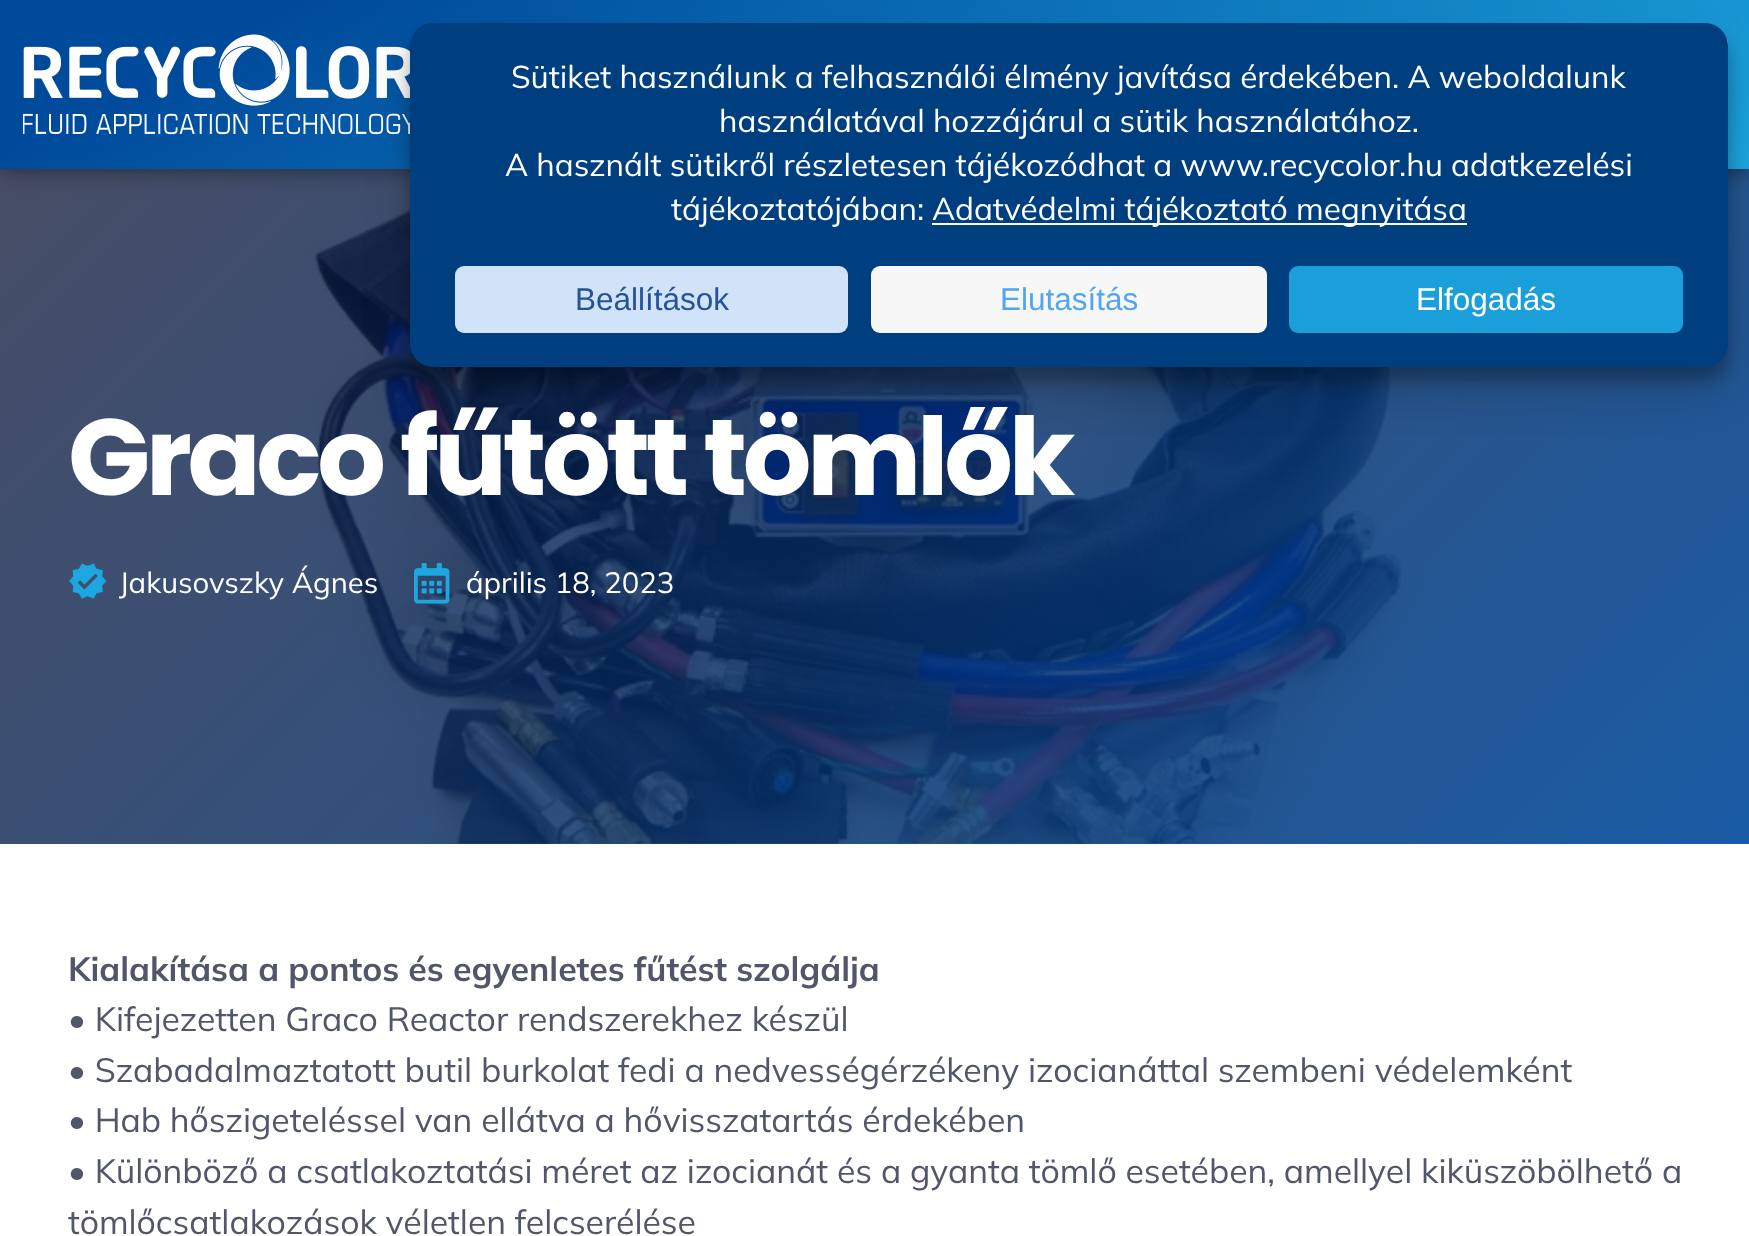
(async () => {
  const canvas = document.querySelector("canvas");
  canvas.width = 1749;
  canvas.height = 1236;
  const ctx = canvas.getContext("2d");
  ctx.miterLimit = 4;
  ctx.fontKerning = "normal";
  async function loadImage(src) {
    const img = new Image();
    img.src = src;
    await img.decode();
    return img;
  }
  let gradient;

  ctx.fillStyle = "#ffffff";
  ctx.fillRect(0, 0, 1749, 1236);
  ctx.drawImage(await loadImage("img/2.png"), 300, 169, 1130, 675);
  gradient = ctx.createLinearGradient(269, -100, 1482, 1113);
  gradient.addColorStop(0, "rgba(0, 9, 43, 0.72)");
  gradient.addColorStop(1, "rgba(0, 74, 155, 0.9)");
  ctx.fillStyle = gradient;
  ctx.fillRect(0, 169, 1749, 675);
  ctx.fillStyle = "rgba(0, 0, 0, 0.5)";
  ctx.filter = "blur(11px)";
  ctx.beginPath();
  ctx.rect(0, 0, 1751, 169);
  ctx.fill();
  ctx.filter = "none";
  gradient = ctx.createLinearGradient(1090, 505, 661, -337);
  gradient.addColorStop(0, "#1da7e0");
  gradient.addColorStop(0.85, "#004a9b");
  ctx.fillStyle = gradient;
  ctx.fillRect(0, 0, 1749, 169);
  ctx.drawImage(await loadImage("img/1.png"), 23, 34, 387, 101);
  ctx.beginPath();
  ctx.roundRect(1308, 37, 419, 95, 6);
  ctx.strokeStyle = "#f7f7f7";
  ctx.lineWidth = 2;
  ctx.stroke();
  ctx.fillStyle = "rgba(0, 0, 0, 0.23)";
  ctx.filter = "blur(7px)";
  ctx.beginPath();
  ctx.roundRect(410, 36, 1318, 344, 23);
  ctx.fill();
  ctx.filter = "none";
  ctx.fillStyle = "rgba(0, 0, 0, 0.19)";
  ctx.filter = "blur(22.5px)";
  ctx.beginPath();
  ctx.roundRect(410, 45, 1318, 344, 23);
  ctx.fill();
  ctx.filter = "none";
  ctx.fillStyle = "#003f7f";
  ctx.beginPath();
  ctx.roundRect(410, 23, 1318, 344, 23);
  ctx.fill();
  ctx.fillStyle = "#ffffff";
  ctx.fillRect(932, 223, 535, 2);
  ctx.fillStyle = "#d0e3f8";
  ctx.beginPath();
  ctx.roundRect(455, 266, 393, 67, 9);
  ctx.fill();
  ctx.fillStyle = "#f7f7f7";
  ctx.beginPath();
  ctx.roundRect(871, 266, 396, 67, 9);
  ctx.fill();
  ctx.fillStyle = "#1b9fdb";
  ctx.beginPath();
  ctx.roundRect(1289, 266, 394, 67, 9);
  ctx.fill();
  ctx.drawImage(await loadImage("img/3.png"), 69, 563, 38, 36);
  ctx.drawImage(await loadImage("img/4.png"), 414, 563, 36, 41);
  ctx.font = "31.5px Mulish";
  ctx.fillStyle = "#ffffff";
  for (const [text, x, y] of [
    ["Sütiket használunk a felhasználói élmény javítása érdekében. A weboldalunk", 511, 88],
    ["használatával hozzájárul a sütik használatához.", 719, 132],
    ["A használt sütikről részletesen tájékozódhat a www.recycolor.hu adatkezelési", 505, 176],
    ["tájékoztatójában:", 671, 220],
    ["Adatvédelmi tájékoztató megnyitása", 932, 220],
  ]) {
    ctx.fillText(text, x, y);
  }
  ctx.font = "31.5px Liberation Sans";
  ctx.fillStyle = "#255396";
  ctx.fillText("Beállítások", 575, 310);
  ctx.fillStyle = "#53a5ee";
  ctx.fillText("Elutasítás", 1000, 310);
  ctx.fillStyle = "#ffffff";
  ctx.fillText("Elfogadás", 1416, 310);
  ctx.letterSpacing = "-4.5px";
  ctx.font = "bold 108px Poppins";
  ctx.fillText("Graco fűtött tömlők", 68, 495);
  ctx.letterSpacing = "0px";
  ctx.font = "29.25px Mulish";
  ctx.fillText("Jakusovszky Ágnes", 119, 593);
  ctx.fillText("április 18, 2023", 466, 593);
  ctx.font = "bold 33.75px Mulish";
  ctx.fillStyle = "#525669";
  ctx.fillText("Kialakítása a pontos és egyenletes fűtést szolgálja", 68, 981);
  ctx.font = "33.75px Mulish";
  for (const [text, x, y] of [
    ["• Kifejezetten Graco Reactor rendszerekhez készül", 68, 1031],
    ["• Szabadalmaztatott butil burkolat fedi a nedvességérzékeny izocianáttal szembeni védelemként", 68, 1082],
    ["• Hab hőszigeteléssel van ellátva a hővisszatartás érdekében", 68, 1132],
    ["• Különböző a csatlakoztatási méret az izocianát és a gyanta tömlő esetében, amellyel kiküszöbölhető a", 68, 1183],
    ["tömlőcsatlakozások véletlen felcserélése", 68, 1234],
  ]) {
    ctx.fillText(text, x, y);
  }
})();
